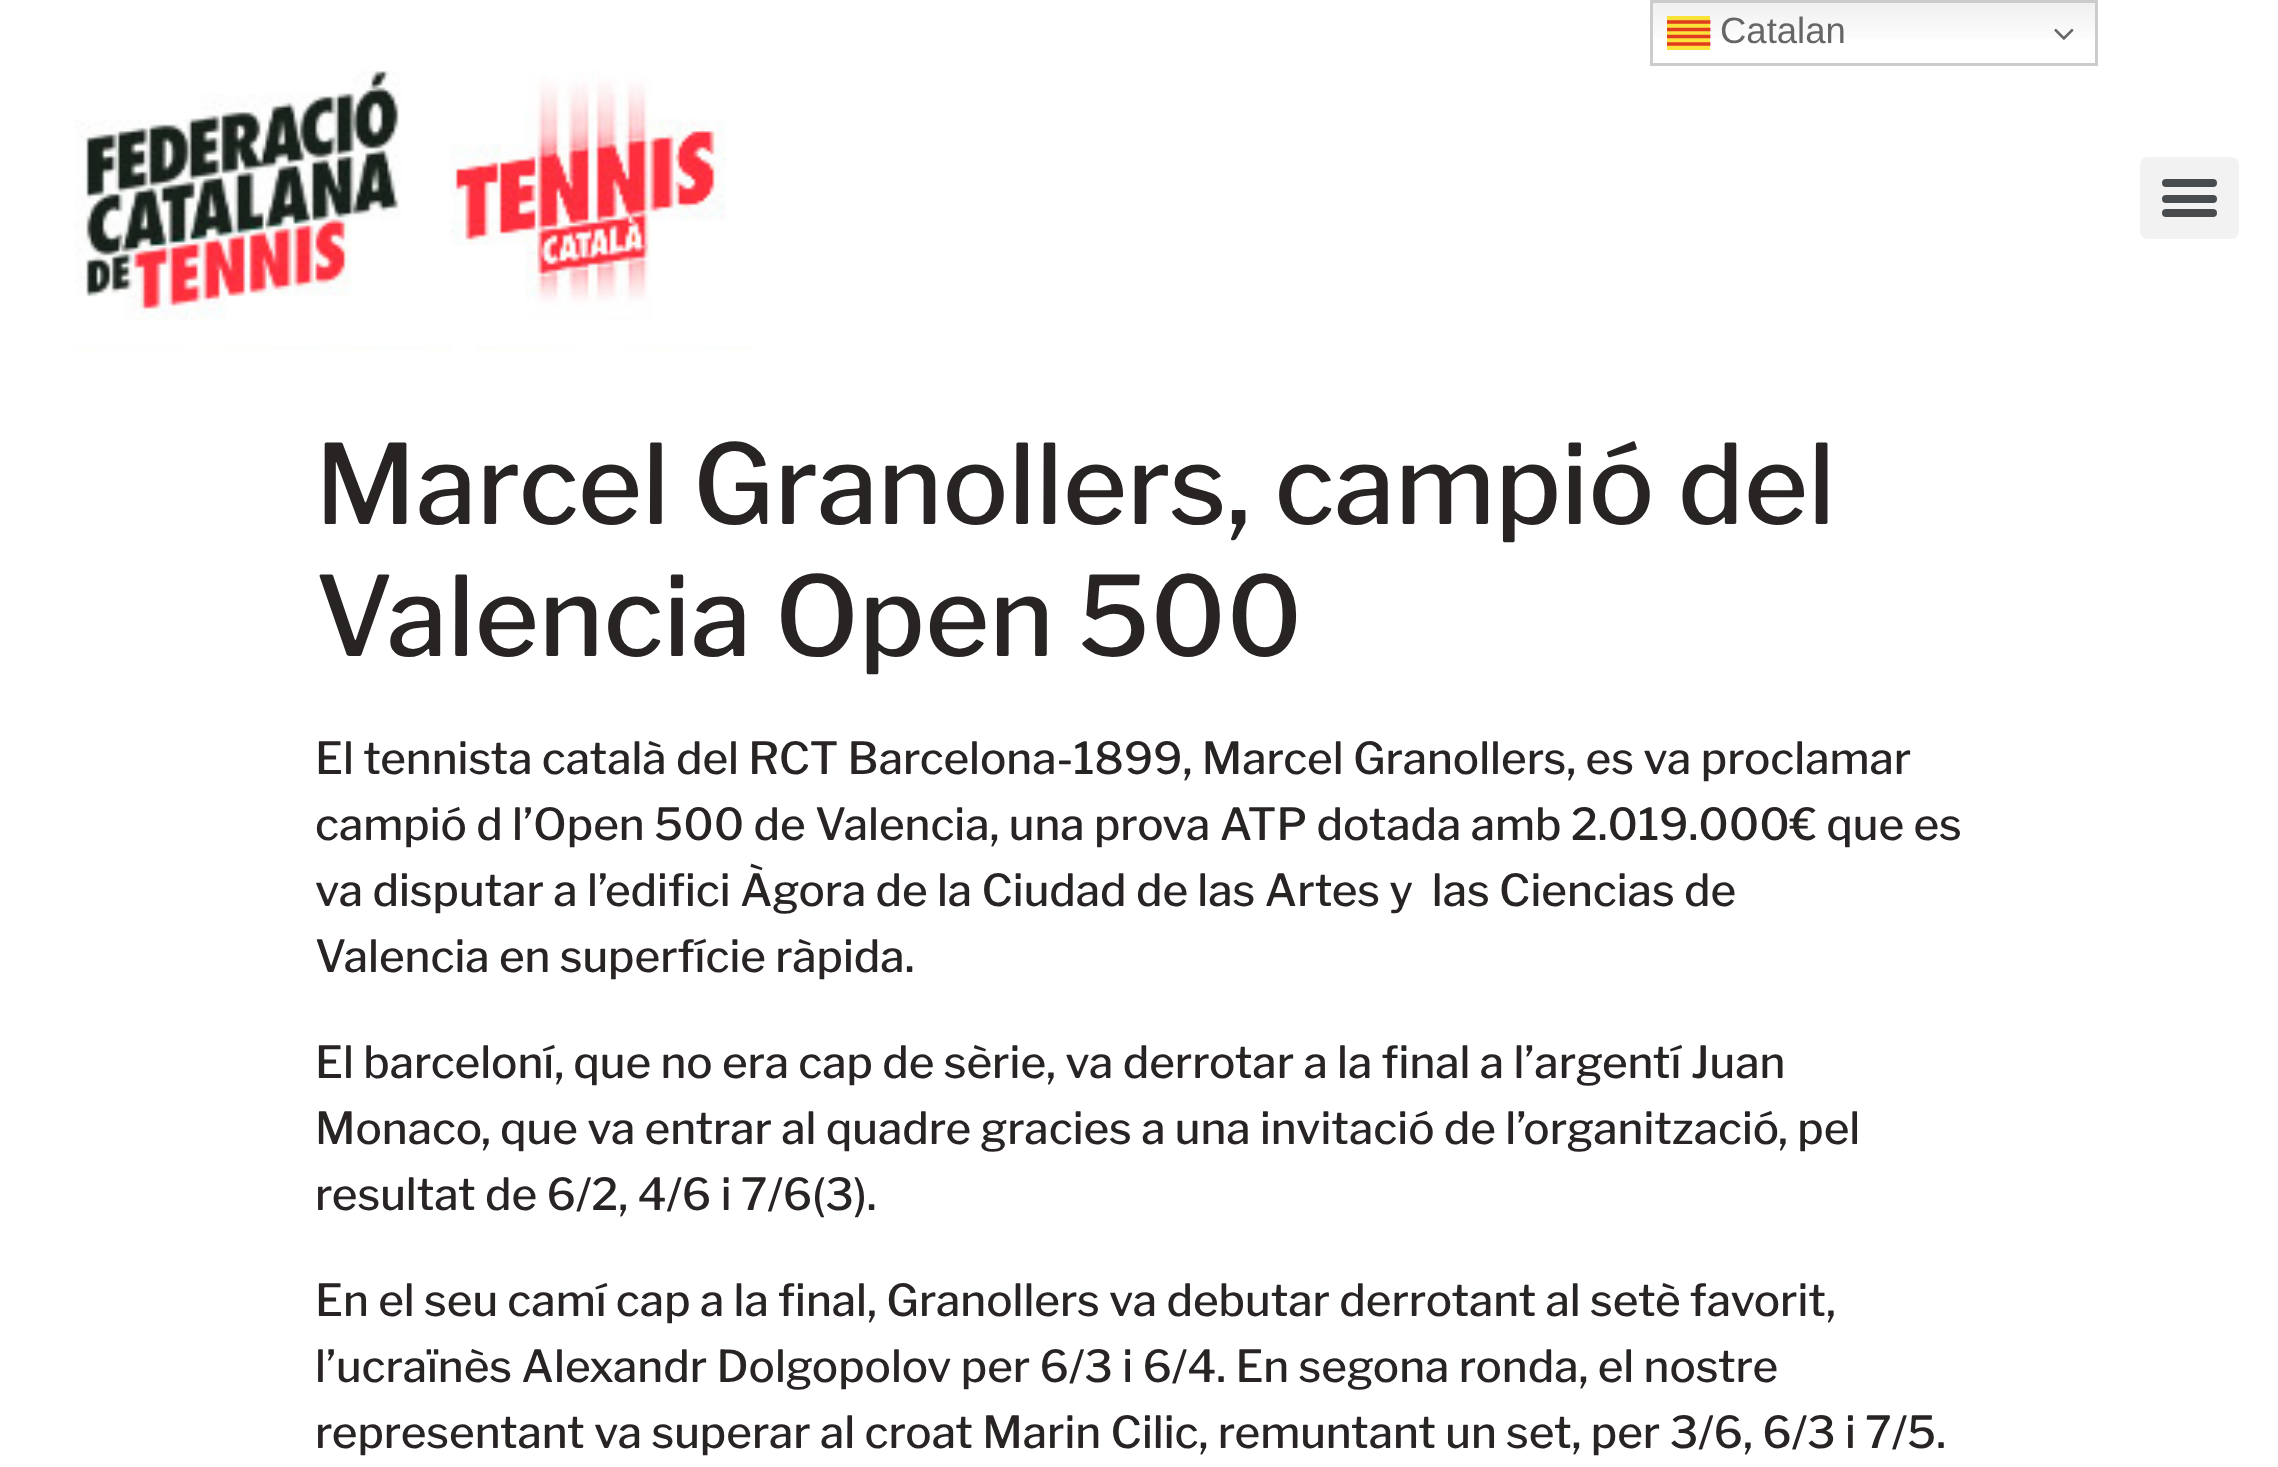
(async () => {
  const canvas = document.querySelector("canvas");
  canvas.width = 2278;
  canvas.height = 1467;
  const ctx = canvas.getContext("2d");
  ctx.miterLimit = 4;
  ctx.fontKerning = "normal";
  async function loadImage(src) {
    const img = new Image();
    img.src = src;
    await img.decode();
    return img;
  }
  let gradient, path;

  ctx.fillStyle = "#ffffff";
  ctx.fillRect(0, 0, 2278, 1467);
  gradient = ctx.createLinearGradient(1874, 0, 1874, 66);
  gradient.addColorStop(0, "#efefef");
  gradient.addColorStop(0.7, "#ffffff");
  ctx.fillStyle = gradient;
  ctx.fillRect(1653, 3, 442, 36);
  gradient = ctx.createLinearGradient(1874, 0, 1874, 66);
  gradient.addColorStop(0, "#f9e137");
  gradient.addColorStop(0.7, "#fde43a");
  ctx.fillStyle = gradient;
  ctx.fillRect(1667, 16, 43, 34);
  ctx.strokeStyle = "#cccccc";
  ctx.lineWidth = 3;
  ctx.strokeRect(1651.5, 1.5, 445, 63);
  ctx.save();
  ctx.beginPath();
  ctx.rect(1667, 11, 44, 44);
  ctx.clip();
  path = new Path2D("M1666.5 22H1710.5M1710.5 29.5H1666.5M1666.5 36.5H1710.5M1710.5 44H1666.5");
  ctx.strokeStyle = "rgba(218, 18, 26, 0.8)";
  ctx.lineWidth = 3.5;
  ctx.stroke(path);
  ctx.restore();
  ctx.drawImage(await loadImage("img/1.png"), 2054, 28, 20, 12);
  ctx.drawImage(await loadImage("img/2.png"), 75, 70, 676, 281);
  ctx.fillStyle = "#f2f2f2";
  ctx.beginPath();
  ctx.roundRect(2140, 157, 99, 82, 8);
  ctx.fill();
  ctx.fillStyle = "#494c4f";
  ctx.beginPath();
  ctx.roundRect(2162, 195, 55, 8, 4);
  ctx.fill();
  ctx.beginPath();
  ctx.roundRect(2162, 179, 55, 8, 4);
  ctx.fill();
  ctx.beginPath();
  ctx.roundRect(2162, 209, 55, 8, 4);
  ctx.fill();
  ctx.font = "36.5px Liberation Sans";
  ctx.fillStyle = "#666666";
  ctx.fillText("Catalan", 1720, 43);
  ctx.font = "500 110px Libre Franklin";
  ctx.fillStyle = "#292424";
  ctx.fillText("Marcel Granollers, campió del", 315, 524);
  ctx.fillText("Valencia Open 500", 315, 656);
  ctx.font = "500 44px Libre Franklin";
  for (const [text, x, y] of [
    ["El tennista català del RCT Barcelona-1899, Marcel Granollers, es va proclamar", 315, 774],
    ["campió d l’Open 500 de Valencia, una prova ATP dotada amb 2.019.000€ que es", 315, 840],
    ["va disputar a l’edifici Àgora de la Ciudad de las Artes y  las Ciencias de", 315, 906],
    ["Valencia en superfície ràpida.", 315, 972],
    ["El barceloní, que no era cap de sèrie, va derrotar a la final a l’argentí Juan", 315, 1078],
    ["Monaco, que va entrar al quadre gracies a una invitació de l’organització, pel", 315, 1144],
    ["resultat de 6/2, 4/6 i 7/6(3).", 315, 1210],
    ["En el seu camí cap a la final, Granollers va debutar derrotant al setè favorit,", 315, 1316],
    ["l’ucraïnès Alexandr Dolgopolov per 6/3 i 6/4. En segona ronda, el nostre", 315, 1382],
    ["representant va superar al croat Marin Cilic, remuntant un set, per 3/6, 6/3 i 7/5.", 315, 1448],
  ]) {
    ctx.fillText(text, x, y);
  }
})();
